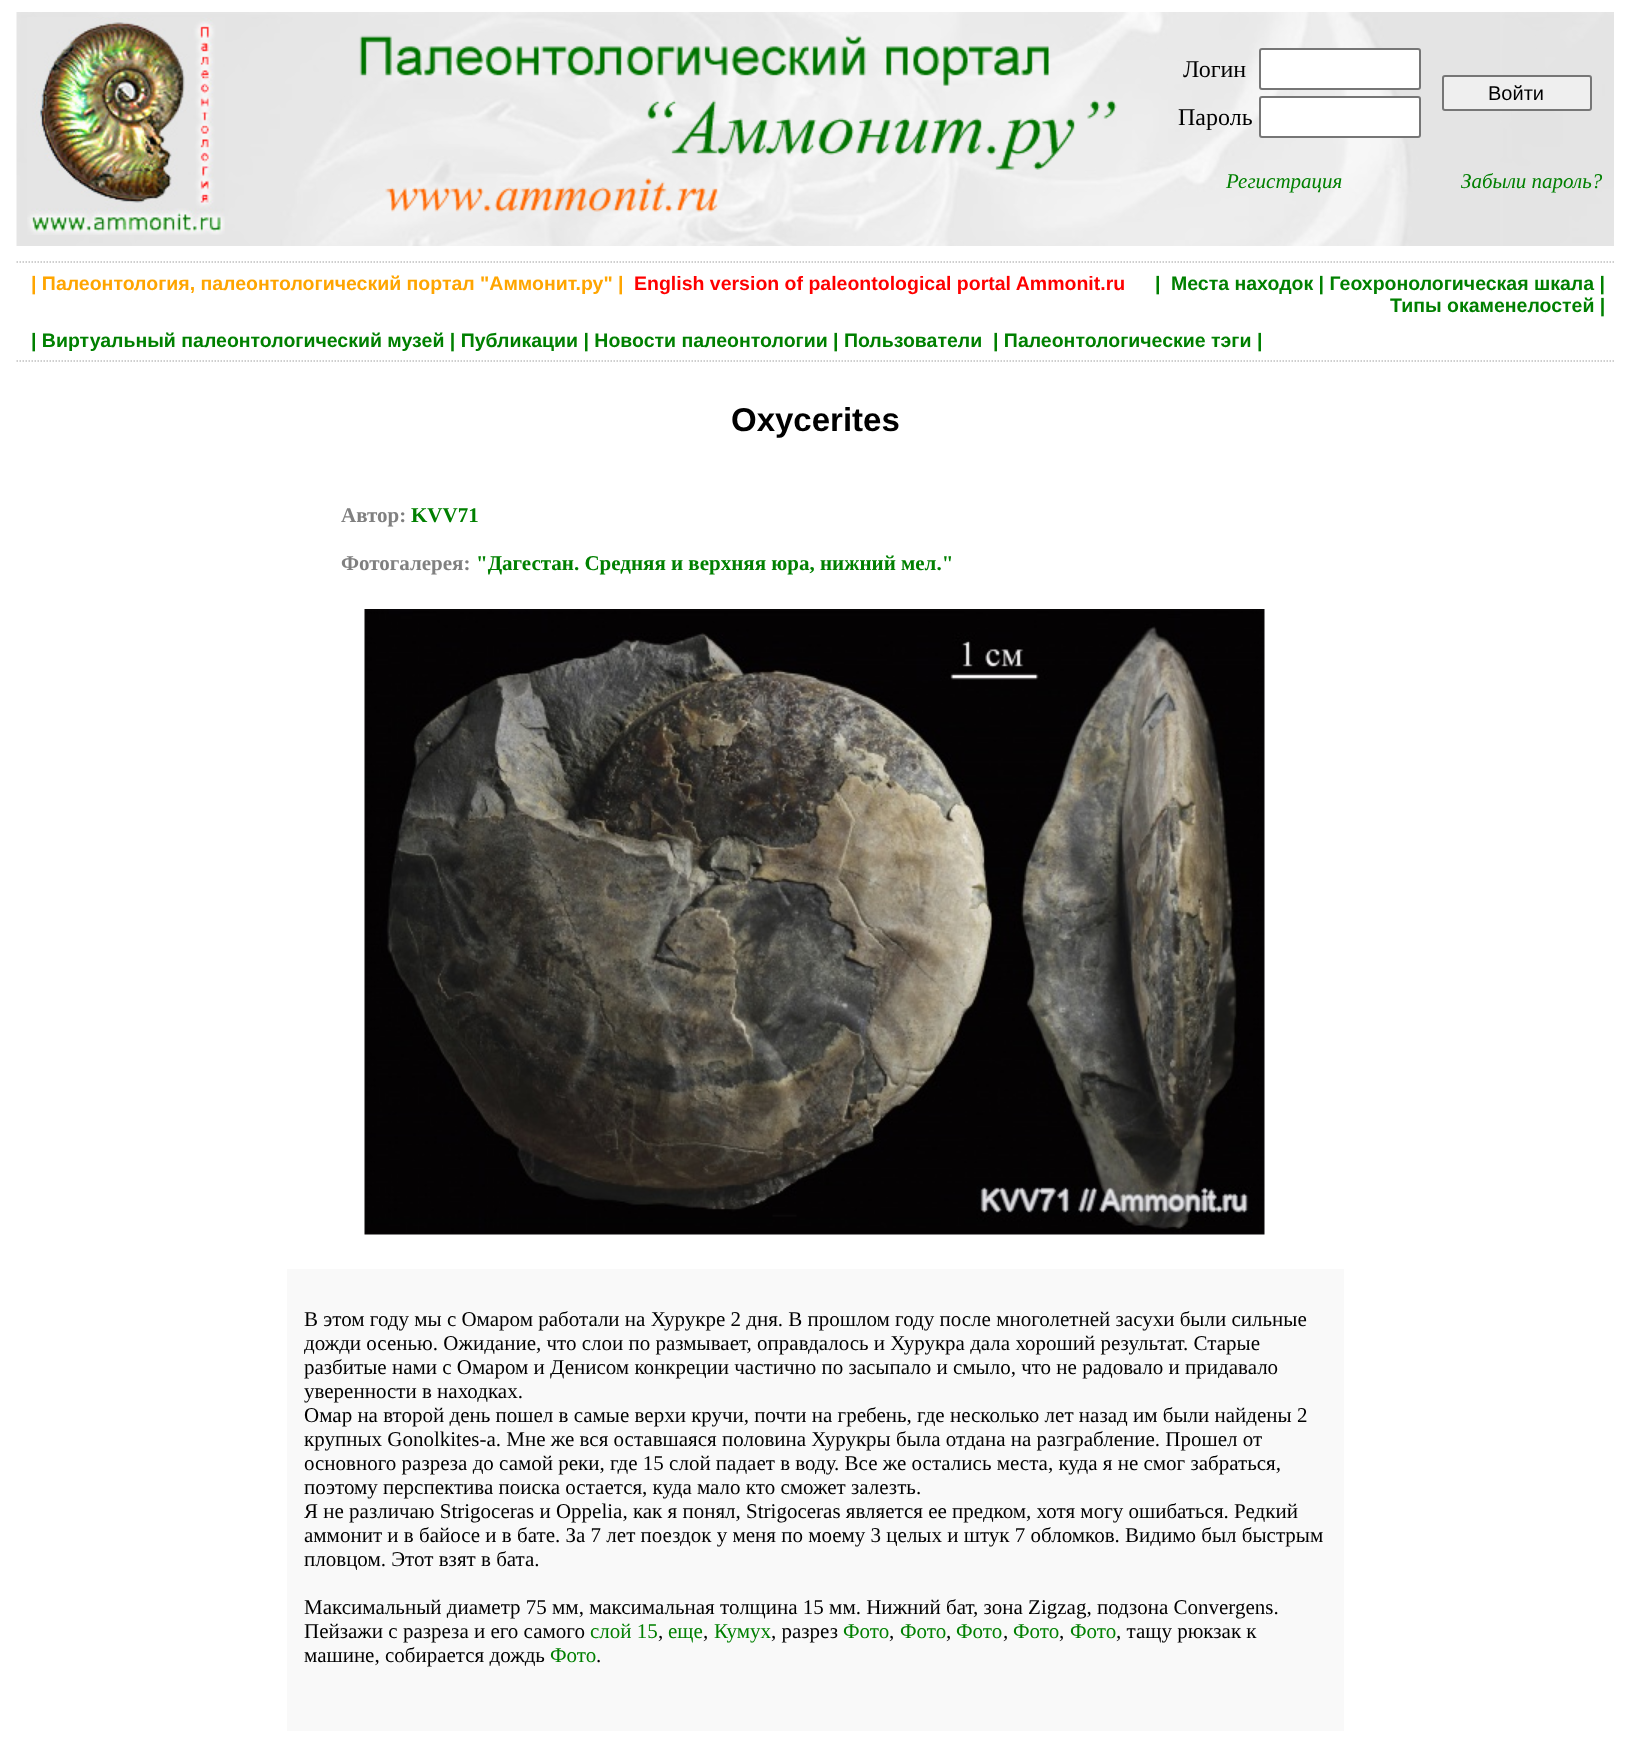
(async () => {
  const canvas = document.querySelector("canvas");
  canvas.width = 1630;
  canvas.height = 1757;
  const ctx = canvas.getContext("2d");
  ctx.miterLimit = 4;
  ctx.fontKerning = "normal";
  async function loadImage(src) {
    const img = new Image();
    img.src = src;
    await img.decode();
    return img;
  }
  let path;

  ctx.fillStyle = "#ffffff";
  ctx.fillRect(0, 0, 1630, 1757);
  ctx.drawImage(await loadImage("img/1.png"), 16, 12, 1598, 234);
  ctx.drawImage(await loadImage("img/2.png"), 27, 17, 198, 218);
  ctx.drawImage(await loadImage("img/3.png"), 359, 35, 758, 177);
  ctx.beginPath();
  ctx.roundRect(1260, 49, 160, 40, 2);
  ctx.fill();
  ctx.strokeStyle = "#767676";
  ctx.lineWidth = 2;
  ctx.stroke();
  ctx.beginPath();
  ctx.roundRect(1260, 97, 160, 40, 2);
  ctx.fill();
  ctx.stroke();
  ctx.fillStyle = "#efefef";
  ctx.beginPath();
  ctx.roundRect(1443, 76, 148, 34, 2);
  ctx.fill();
  ctx.stroke();
  path = new Path2D("M16.5 262H1614");
  ctx.strokeStyle = "#c0c0c0";
  ctx.lineWidth = 1.5;
  ctx.setLineDash([1.5, 1.5]);
  ctx.stroke(path);
  path = new Path2D("M16.5 361H1614");
  ctx.stroke(path);
  ctx.drawImage(await loadImage("img/4.png"), 364, 609, 901, 626);
  ctx.fillStyle = "#f9f9f9";
  ctx.fillRect(287, 1269, 1057, 462);
  ctx.font = "24px Liberation Serif";
  ctx.fillStyle = "#000000";
  ctx.fillText("Логин", 1183, 77);
  ctx.fillText("Пароль", 1178, 125);
  ctx.font = "20px Liberation Sans";
  ctx.fillText("Войти", 1488, 100);
  ctx.font = "italic 21px Liberation Serif";
  ctx.fillStyle = "#008000";
  ctx.fillText("Регистрация", 1226, 188);
  ctx.fillText("Забыли пароль?", 1461, 188);
  ctx.font = "bold 19.5px Liberation Sans";
  ctx.fillStyle = "#ffa500";
  ctx.fillText("| Палеонтология, палеонтологический портал \"Аммонит.ру\" |", 31, 290);
  ctx.fillStyle = "#ff0000";
  ctx.fillText("English version of paleontological portal Ammonit.ru", 634, 290);
  ctx.fillStyle = "#008000";
  for (const [text, x, y] of [
    ["|", 1155, 290],
    ["Места находок | Геохронологическая шкала |", 1171, 290],
    ["Типы окаменелостей |", 1390, 312],
    ["| Виртуальный палеонтологический музей | Публикации | Новости палеонтологии | Пользователи", 31, 347],
    ["| Палеонтологические тэги |", 993, 347],
  ]) {
    ctx.fillText(text, x, y);
  }
  ctx.font = "bold 33px Liberation Sans";
  ctx.fillStyle = "#000000";
  ctx.fillText("Oxycerites", 731, 431);
  ctx.font = "bold 21px Liberation Serif";
  ctx.fillStyle = "#808080";
  ctx.fillText("Автор:", 341, 522);
  ctx.fillStyle = "#008000";
  ctx.fillText("KVV71", 411, 522);
  ctx.fillStyle = "#808080";
  ctx.fillText("Фотогалерея:", 341, 570);
  ctx.fillStyle = "#008000";
  ctx.fillText("\"Дагестан. Средняя и верхняя юра, нижний мел.\"", 476, 570);
  ctx.font = "21px Liberation Serif";
  ctx.fillStyle = "#000000";
  for (const [text, x, y] of [
    ["В этом году мы с Омаром работали на Хурукре 2 дня. В прошлом году после многолетней засухи были сильные", 304, 1326],
    ["дожди осенью. Ожидание, что слои по размывает, оправдалось и Хурукра дала хороший результат. Старые", 304, 1350],
    ["разбитые нами с Омаром и Денисом конкреции частично по засыпало и смыло, что не радовало и придавало", 304, 1374],
    ["уверенности в находках.", 304, 1398],
    ["Омар на второй день пошел в самые верхи кручи, почти на гребень, где несколько лет назад им были найдены 2", 304, 1422],
    ["крупных Gonolkites-а. Мне же вся оставшаяся половина Хурукры была отдана на разграбление. Прошел от", 304, 1446],
    ["основного разреза до самой реки, где 15 слой падает в воду. Все же остались места, куда я не смог забраться,", 304, 1470],
    ["поэтому перспектива поиска остается, куда мало кто сможет залезть.", 304, 1494],
    ["Я не различаю Strigoceras и Oppelia, как я понял, Strigoceras является ее предком, хотя могу ошибаться. Редкий", 304, 1518],
    ["аммонит и в байосе и в бате. За 7 лет поездок у меня по моему 3 целых и штук 7 обломков. Видимо был быстрым", 304, 1542],
    ["пловцом. Этот взят в бата.", 304, 1566],
    ["Максимальный диаметр 75 мм, максимальная толщина 15 мм. Нижний бат, зона Zigzag, подзона Convergens.", 304, 1614],
    ["Пейзажи с разреза и его самого", 304, 1638],
  ]) {
    ctx.fillText(text, x, y);
  }
  ctx.fillStyle = "#008000";
  ctx.fillText("слой 15", 590, 1638);
  ctx.fillStyle = "#000000";
  ctx.fillText(",", 658, 1638);
  ctx.fillStyle = "#008000";
  ctx.fillText("еще", 668, 1638);
  ctx.fillStyle = "#000000";
  ctx.fillText(",", 703, 1638);
  ctx.fillStyle = "#008000";
  ctx.fillText("Кумух", 714, 1638);
  ctx.fillStyle = "#000000";
  ctx.fillText(", разрез", 771, 1638);
  ctx.fillStyle = "#008000";
  ctx.fillText("Фото", 843, 1638);
  ctx.fillStyle = "#000000";
  ctx.fillText(",", 889, 1638);
  ctx.fillStyle = "#008000";
  ctx.fillText("Фото", 900, 1638);
  ctx.fillStyle = "#000000";
  ctx.fillText(",", 946, 1638);
  ctx.fillStyle = "#008000";
  ctx.fillText("Фото", 956, 1638);
  ctx.fillStyle = "#000000";
  ctx.fillText(",", 1003, 1638);
  ctx.fillStyle = "#008000";
  ctx.fillText("Фото", 1013, 1638);
  ctx.fillStyle = "#000000";
  ctx.fillText(",", 1059, 1638);
  ctx.fillStyle = "#008000";
  ctx.fillText("Фото", 1070, 1638);
  ctx.fillStyle = "#000000";
  ctx.fillText(", тащу рюкзак к", 1116, 1638);
  ctx.fillText("машине, собирается дождь", 304, 1662);
  ctx.fillStyle = "#008000";
  ctx.fillText("Фото", 550, 1662);
  ctx.fillStyle = "#000000";
  ctx.fillText(".", 596, 1662);
})();
